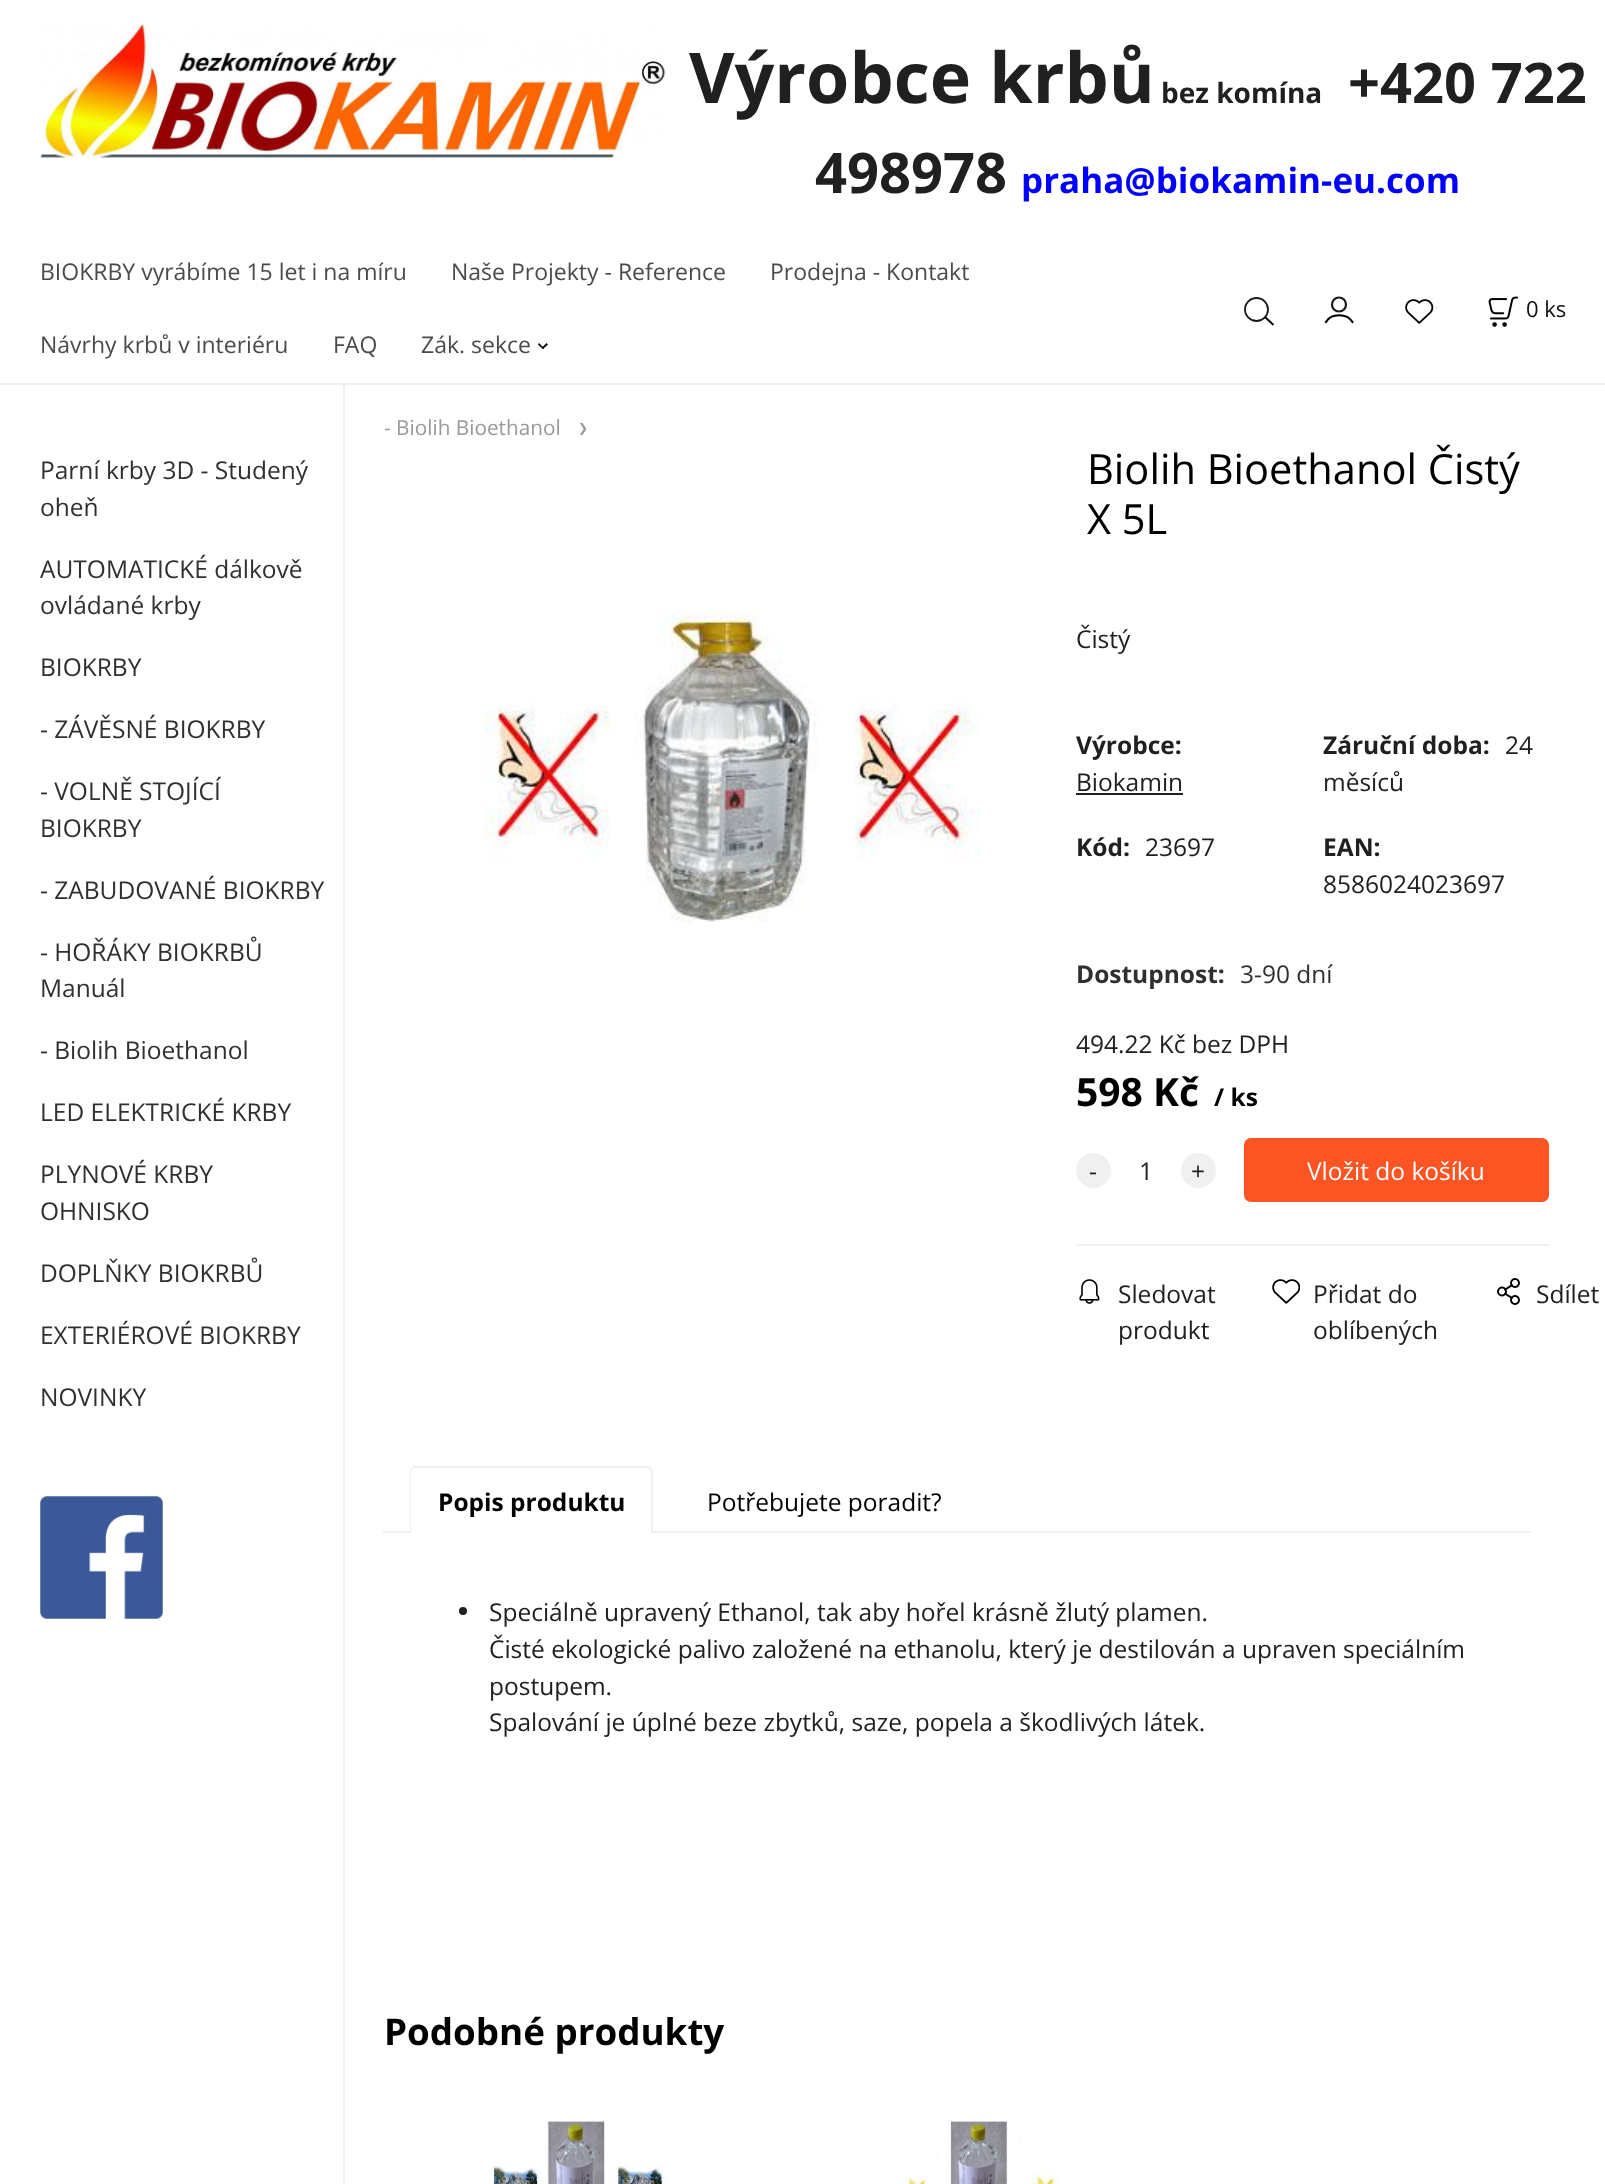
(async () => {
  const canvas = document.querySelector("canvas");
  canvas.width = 1605;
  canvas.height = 2184;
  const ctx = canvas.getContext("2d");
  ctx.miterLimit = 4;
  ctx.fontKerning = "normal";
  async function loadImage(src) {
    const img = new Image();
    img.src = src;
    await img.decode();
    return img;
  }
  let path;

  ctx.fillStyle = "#ffffff";
  ctx.fillRect(0, 0, 1605, 2184);
  ctx.drawImage(await loadImage("img/1.png"), 40, 24, 625, 134);
  ctx.fillStyle = "#efefef";
  ctx.fillRect(0, 383, 1605, 2);
  ctx.fillStyle = "#000000";
  path = new Path2D("M541.5 348L546.5 343L548 344.5L543 349Z");
  ctx.fill(path);
  path = new Path2D("M538 344.5L539 343L544 348L543 349Z");
  ctx.fill(path);
  ctx.beginPath();
  ctx.arc(1256.5, 309.5, 11.5, 0, Math.PI * 2);
  ctx.strokeStyle = "#191919";
  ctx.lineWidth = 1.8;
  ctx.stroke();
  path = new Path2D("M1265.5 317.5L1273 324.5");
  ctx.strokeStyle = "#000000";
  ctx.lineCap = "round";
  ctx.stroke(path);
  ctx.beginPath();
  ctx.arc(1339, 304.5, 7, 0, Math.PI * 2);
  ctx.strokeStyle = "#191919";
  ctx.lineWidth = 2.2;
  ctx.stroke();
  path = new Path2D("M1326 322C1331 313 1347 313 1352.5 322");
  ctx.strokeStyle = "#000000";
  ctx.stroke(path);
  ctx.drawImage(await loadImage("img/2.png"), 1405, 299, 32, 25);
  ctx.drawImage(await loadImage("img/3.png"), 1488, 296, 30, 31);
  ctx.fillStyle = "#efefef";
  ctx.fillRect(343, 385, 2, 1799);
  ctx.drawImage(await loadImage("img/4.png"), 40, 1496, 123, 123);
  ctx.drawImage(await loadImage("img/5.png"), 484, 611, 496, 311);
  ctx.fillStyle = "#202020";
  ctx.fillRect(1076, 793, 107, 2);
  ctx.fillStyle = "#f0f0f0";
  ctx.beginPath();
  ctx.arc(1093.5, 1170.5, 17.5, 0, Math.PI * 2);
  ctx.fill();
  ctx.beginPath();
  ctx.arc(1198.5, 1170.5, 17.5, 0, Math.PI * 2);
  ctx.fill();
  ctx.fillStyle = "#fc5423";
  ctx.beginPath();
  ctx.roundRect(1244, 1138, 305, 64, 7);
  ctx.fill();
  ctx.fillStyle = "#f0f0f0";
  ctx.fillRect(1076, 1244, 473, 2);
  ctx.drawImage(await loadImage("img/6.png"), 1079, 1279, 21, 25);
  ctx.drawImage(await loadImage("img/7.png"), 1272, 1279, 28, 25);
  ctx.drawImage(await loadImage("img/8.png"), 1497, 1278, 23, 27);
  ctx.fillStyle = "#efefef";
  ctx.fillRect(383, 1531, 1148, 2);
  ctx.fillStyle = "#ffffff";
  ctx.beginPath();
  ctx.roundRect(410, 1467, 243, 66, [5, 5, 0, 0]);
  ctx.fill();
  ctx.fillStyle = "#efefef";
  path = new Path2D("M415 1466H648C650 1466 653 1469 653 1472V1533H410V1472C410 1469 412 1466 415 1466ZM415 1468H648C649 1468 651 1470 651 1472V1533H411V1472C411 1470 413 1468 415 1468Z");
  ctx.fill(path, "evenodd");
  ctx.fillStyle = "#202020";
  ctx.beginPath();
  ctx.arc(463, 1611, 4, 0, Math.PI * 2);
  ctx.fill();
  ctx.drawImage(await loadImage("img/9.png"), 489, 2119, 177, 65);
  ctx.drawImage(await loadImage("img/10.png"), 901, 2119, 159, 65);
  ctx.font = "bold 70px Open Sans";
  ctx.fillText("Výrobce krbů", 689, 103);
  ctx.font = "bold 28px Open Sans";
  ctx.fillText("bez komína", 1161, 103);
  ctx.font = "bold 56px Open Sans";
  ctx.fillText("+420 722", 1348, 103);
  ctx.fillText("498978", 815, 193);
  ctx.font = "bold 35px Open Sans";
  ctx.fillStyle = "#0000ff";
  ctx.fillText("praha@biokamin-eu.com", 1021, 193);
  ctx.font = "23px Open Sans";
  ctx.fillStyle = "#4b4b4b";
  for (const [text, x, y] of [
    ["BIOKRBY vyrábíme 15 let i na míru", 40, 280],
    ["Naše Projekty - Reference", 451, 280],
    ["Prodejna - Kontakt", 770, 280],
    ["Návrhy krbů v interiéru", 40, 353],
    ["FAQ", 333, 353],
    ["Zák. sekce", 421, 353],
  ]) {
    ctx.fillText(text, x, y);
  }
  ctx.font = "22px Open Sans";
  ctx.fillStyle = "#101010";
  ctx.fillText("0 ks", 1526, 317);
  ctx.font = "24.5px Open Sans";
  ctx.fillStyle = "#303030";
  for (const [text, x, y] of [
    ["Parní krby 3D - Studený", 40, 479],
    ["oheň", 40, 516],
    ["AUTOMATICKÉ dálkově", 40, 578],
    ["ovládané krby", 40, 614],
    ["BIOKRBY", 40, 676],
    ["- ZÁVĚSNÉ BIOKRBY", 40, 738],
    ["- VOLNĚ STOJÍCÍ", 40, 800],
    ["BIOKRBY", 40, 837],
    ["- ZABUDOVANÉ BIOKRBY", 40, 899],
    ["- HOŘÁKY BIOKRBŮ", 40, 961],
    ["Manuál", 40, 997],
    ["- Biolih Bioethanol", 40, 1059],
    ["LED ELEKTRICKÉ KRBY", 40, 1121],
    ["PLYNOVÉ KRBY", 40, 1183],
    ["OHNISKO", 40, 1220],
    ["DOPLŇKY BIOKRBŮ", 40, 1282],
    ["EXTERIÉROVÉ BIOKRBY", 40, 1344],
    ["NOVINKY", 40, 1406],
  ]) {
    ctx.fillText(text, x, y);
  }
  ctx.font = "20.75px Open Sans";
  ctx.fillStyle = "#999999";
  ctx.fillText("- Biolih Bioethanol", 384, 435);
  ctx.font = "12px DejaVu Sans";
  ctx.fillText("❯", 578, 432);
  ctx.font = "41.6px Open Sans";
  ctx.fillStyle = "#000000";
  ctx.fillText("Biolih Bioethanol Čistý", 1087, 484);
  ctx.fillText("X 5L", 1087, 534);
  ctx.font = "24.5px Open Sans";
  ctx.fillStyle = "#202020";
  ctx.fillText("Čistý", 1076, 648);
  ctx.font = "bold 24.5px Open Sans";
  ctx.fillText("Výrobce:", 1076, 754);
  ctx.font = "24.5px Open Sans";
  ctx.fillText("Biokamin", 1076, 791);
  ctx.font = "bold 24.5px Open Sans";
  ctx.fillText("Záruční doba:", 1323, 754);
  ctx.font = "24.5px Open Sans";
  ctx.fillText("24", 1505, 754);
  ctx.fillText("měsíců", 1323, 791);
  ctx.font = "bold 24.5px Open Sans";
  ctx.fillText("Kód:", 1076, 856);
  ctx.font = "24.5px Open Sans";
  ctx.fillText("23697", 1145, 856);
  ctx.font = "bold 24.5px Open Sans";
  ctx.fillText("EAN:", 1323, 856);
  ctx.font = "24.5px Open Sans";
  ctx.fillText("8586024023697", 1323, 893);
  ctx.font = "bold 24.5px Open Sans";
  ctx.fillStyle = "#303030";
  ctx.fillText("Dostupnost:", 1076, 983);
  ctx.font = "24.5px Open Sans";
  ctx.fillText("3-90 dní", 1240, 983);
  ctx.fillStyle = "#202020";
  ctx.fillText("494.22 Kč bez DPH", 1076, 1053);
  ctx.font = "bold 39px Open Sans";
  ctx.fillStyle = "#000000";
  ctx.fillText("598 Kč", 1076, 1106);
  ctx.font = "bold 24.5px Open Sans";
  ctx.fillText("/ ks", 1214, 1106);
  ctx.font = "24.5px Open Sans";
  ctx.fillStyle = "#202020";
  for (const [text, x, y] of [
    ["-", 1089, 1180],
    ["1", 1139, 1180],
    ["+", 1191, 1180],
  ]) {
    ctx.fillText(text, x, y);
  }
  ctx.fillStyle = "#ffffff";
  ctx.fillText("Vložit do košíku", 1307, 1180);
  ctx.fillStyle = "#202020";
  for (const [text, x, y] of [
    ["Sledovat", 1118, 1303],
    ["produkt", 1118, 1339],
    ["Přidat do", 1313, 1303],
    ["oblíbených", 1313, 1339],
    ["Sdílet", 1536, 1303],
  ]) {
    ctx.fillText(text, x, y);
  }
  ctx.font = "bold 24.5px Open Sans";
  ctx.fillStyle = "#000000";
  ctx.fillText("Popis produktu", 438, 1511);
  ctx.font = "24.5px Open Sans";
  ctx.fillText("Potřebujete poradit?", 707, 1511);
  ctx.fillStyle = "#202020";
  for (const [text, x, y] of [
    ["Speciálně upravený Ethanol, tak aby hořel krásně žlutý plamen.", 489, 1621],
    ["Čisté ekologické palivo založené na ethanolu, který je destilován a upraven speciálním", 489, 1658],
    ["postupem.", 489, 1695],
    ["Spalování je úplné beze zbytků, saze, popela a škodlivých látek.", 489, 1731],
  ]) {
    ctx.fillText(text, x, y);
  }
  ctx.font = "bold 36.75px Open Sans";
  ctx.fillStyle = "#000000";
  ctx.fillText("Podobné produkty", 384, 2045);
})();
